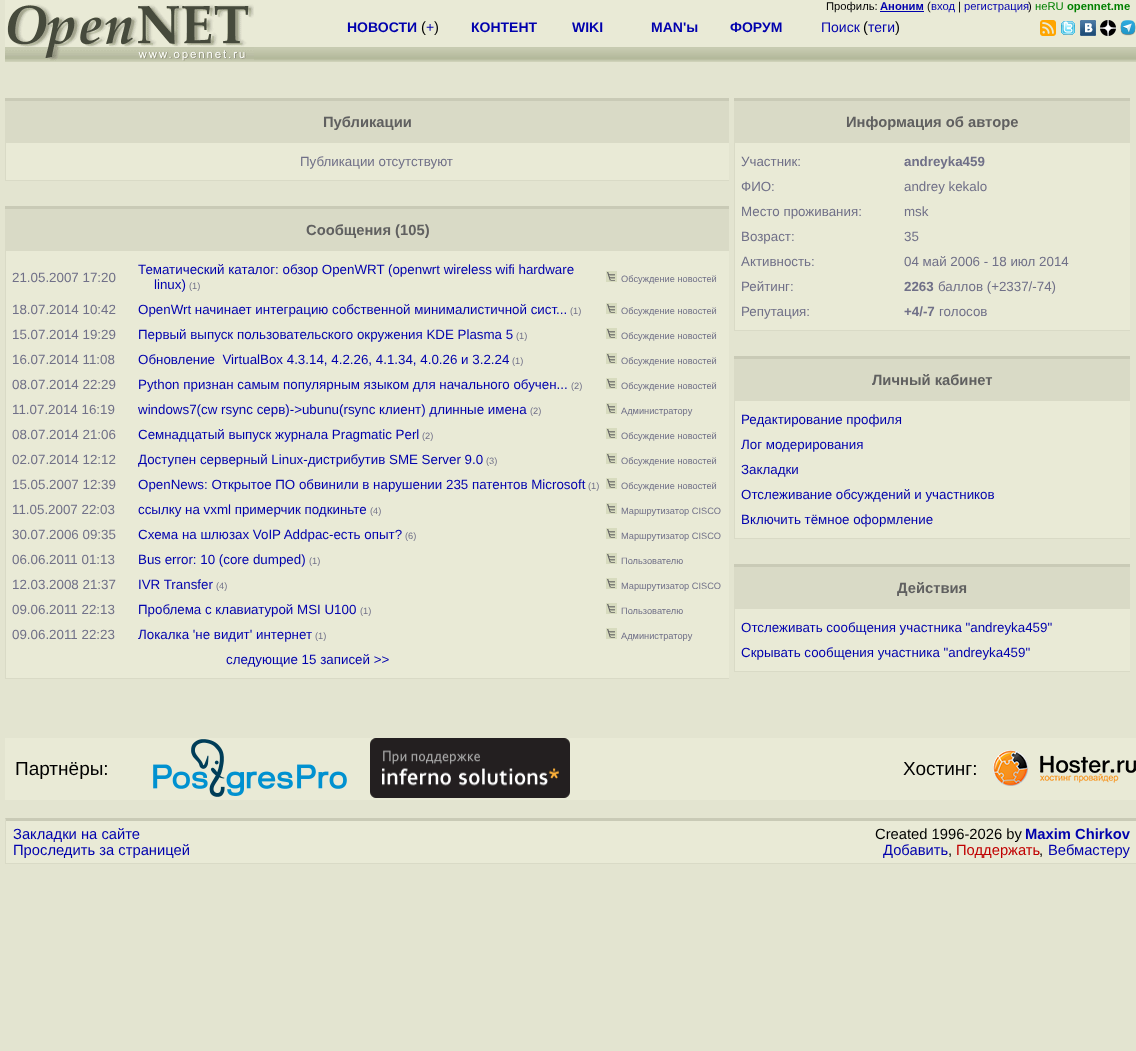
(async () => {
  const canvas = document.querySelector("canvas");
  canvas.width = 1136;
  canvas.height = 1051;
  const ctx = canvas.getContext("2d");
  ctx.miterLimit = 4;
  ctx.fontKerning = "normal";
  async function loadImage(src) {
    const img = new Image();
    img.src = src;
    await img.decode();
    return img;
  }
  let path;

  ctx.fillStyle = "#e3e4d0";
  ctx.fillRect(0, 0, 1136, 1051);
  for (const [x, y, w, h, color] of [
    [5, 0, 1131, 2, "#e9ead6"],
    [5, 2, 1131, 45, "#e9ead6"],
    [880, 11, 44, 1, "#0000ad"],
  ]) {
    ctx.fillStyle = color;
    ctx.fillRect(x, y, w, h);
  }
  ctx.drawImage(await loadImage("img/1.png"), 5, 47, 280, 15);
  ctx.drawImage(await loadImage("img/2.png"), 5, 4, 249, 57);
  ctx.drawImage(await loadImage("img/3.png"), 344, 47, 566, 15);
  ctx.drawImage(await loadImage("img/4.png"), 910, 47, 226, 15);
  ctx.drawImage(await loadImage("img/5.png"), 1040, 20, 16, 16);
  ctx.drawImage(await loadImage("img/6.png"), 1061, 21, 14, 14);
  ctx.drawImage(await loadImage("img/7.png"), 1080, 20, 16, 16);
  ctx.drawImage(await loadImage("img/8.png"), 1100, 20, 16, 16);
  ctx.drawImage(await loadImage("img/9.png"), 1120, 20, 16, 16);
  ctx.drawImage(await loadImage("img/10.png"), 285, 47, 59, 15);
  for (const [x, y, w, h, color] of [
    [5, 101, 724, 42, "#d9dac6"],
    [5, 98, 724, 3, "#c9cab6"],
    [6, 143, 723, 37, "#e9ead6"],
    [5, 180, 724, 1, "#d9dac6"],
    [5, 143, 1, 38, "#d9dac6"],
    [5, 209, 724, 42, "#d9dac6"],
    [5, 206, 724, 3, "#c9cab6"],
    [6, 251, 723, 427, "#e9ead6"],
    [5, 678, 724, 1, "#d9dac6"],
    [5, 251, 1, 428, "#d9dac6"],
  ]) {
    ctx.fillStyle = color;
    ctx.fillRect(x, y, w, h);
  }
  ctx.drawImage(await loadImage("img/11.png"), 606, 271, 11, 11);
  ctx.drawImage(await loadImage("img/11.png"), 606, 303, 11, 11);
  ctx.drawImage(await loadImage("img/11.png"), 606, 328, 11, 11);
  ctx.drawImage(await loadImage("img/11.png"), 606, 353, 11, 11);
  ctx.drawImage(await loadImage("img/11.png"), 606, 378, 11, 11);
  ctx.drawImage(await loadImage("img/11.png"), 606, 403, 11, 11);
  ctx.drawImage(await loadImage("img/11.png"), 606, 428, 11, 11);
  ctx.drawImage(await loadImage("img/11.png"), 606, 453, 11, 11);
  ctx.drawImage(await loadImage("img/11.png"), 606, 478, 11, 11);
  ctx.drawImage(await loadImage("img/11.png"), 606, 503, 11, 11);
  ctx.drawImage(await loadImage("img/11.png"), 606, 528, 11, 11);
  ctx.drawImage(await loadImage("img/11.png"), 606, 553, 11, 11);
  ctx.drawImage(await loadImage("img/11.png"), 606, 578, 11, 11);
  ctx.drawImage(await loadImage("img/11.png"), 606, 603, 11, 11);
  ctx.drawImage(await loadImage("img/11.png"), 606, 628, 11, 11);
  for (const [x, y, w, h, color] of [
    [734, 101, 396, 42, "#d9dac6"],
    [734, 98, 396, 3, "#c9cab6"],
    [735, 143, 395, 187, "#e9ead6"],
    [734, 330, 396, 1, "#d9dac6"],
    [734, 143, 1, 188, "#d9dac6"],
    [734, 359, 396, 42, "#d9dac6"],
    [734, 356, 396, 3, "#c9cab6"],
    [735, 401, 395, 137, "#e9ead6"],
    [734, 538, 396, 1, "#d9dac6"],
    [734, 401, 1, 138, "#d9dac6"],
    [734, 567, 396, 42, "#d9dac6"],
    [734, 564, 396, 3, "#c9cab6"],
    [735, 609, 395, 62, "#e9ead6"],
    [734, 671, 396, 1, "#d9dac6"],
    [734, 609, 1, 63, "#d9dac6"],
    [5, 738, 1131, 62, "#e9ead6"],
  ]) {
    ctx.fillStyle = color;
    ctx.fillRect(x, y, w, h);
  }
  ctx.drawImage(await loadImage("img/12.png"), 153, 739, 194, 58);
  ctx.drawImage(await loadImage("img/13.png"), 370, 738, 200, 60);
  ctx.drawImage(await loadImage("img/14.png"), 993, 750, 143, 36);
  ctx.fillRect(5, 818, 1131, 45);
  ctx.fillStyle = "#c9cab6";
  path = new Path2D("M5 818H1136V821H6Z");
  ctx.fill(path);
  ctx.fillStyle = "#d9dac6";
  ctx.fillRect(5, 863, 1131, 1);
  path = new Path2D("M5 864V818L6 821V863Z");
  ctx.fill(path);
  ctx.font = "11.25px Liberation Sans";
  ctx.fillStyle = "#000000";
  ctx.fillText("Профиль:", 826, 10);
  ctx.font = "bold 11.25px Liberation Sans";
  ctx.fillStyle = "#0000ad";
  ctx.fillText("Аноним", 880, 10);
  ctx.font = "11.25px Liberation Sans";
  ctx.fillStyle = "#000000";
  ctx.fillText("(", 927, 10);
  ctx.fillStyle = "#0000ad";
  ctx.fillText("вход", 931, 10);
  ctx.fillStyle = "#000000";
  ctx.fillText("|", 958, 10);
  ctx.fillStyle = "#0000ad";
  ctx.fillText("регистрация", 964, 10);
  ctx.fillStyle = "#000000";
  ctx.fillText(")", 1028, 10);
  ctx.fillStyle = "#008000";
  ctx.fillText("неRU", 1035, 10);
  ctx.font = "bold 11.25px Liberation Sans";
  ctx.fillText("opennet.me", 1067, 10);
  ctx.font = "bold 14px Liberation Sans";
  ctx.fillStyle = "#0000ad";
  ctx.fillText("НОВОСТИ", 347, 32);
  ctx.font = "14.75px Liberation Sans";
  ctx.fillStyle = "#000000";
  ctx.fillText("(", 421, 32);
  ctx.font = "14px Liberation Sans";
  ctx.fillStyle = "#0000ad";
  ctx.fillText("+", 426, 32);
  ctx.font = "14.75px Liberation Sans";
  ctx.fillStyle = "#000000";
  ctx.fillText(")", 434, 32);
  ctx.font = "bold 14px Liberation Sans";
  ctx.fillStyle = "#0000ad";
  for (const [text, x, y] of [
    ["КОНТЕНТ", 471, 32],
    ["WIKI", 572, 32],
    ["MAN'ы", 651, 32],
    ["ФОРУМ", 730, 32],
  ]) {
    ctx.fillText(text, x, y);
  }
  ctx.font = "14px Liberation Sans";
  ctx.fillText("Поиск", 821, 32);
  ctx.font = "14.75px Liberation Sans";
  ctx.fillStyle = "#000000";
  ctx.fillText("(", 863, 32);
  ctx.font = "14px Liberation Sans";
  ctx.fillStyle = "#0000ad";
  ctx.fillText("теги", 868, 32);
  ctx.font = "14.75px Liberation Sans";
  ctx.fillStyle = "#000000";
  ctx.fillText(")", 895, 32);
  ctx.font = "bold 14.75px Liberation Sans";
  ctx.fillStyle = "#606060";
  ctx.fillText("Публикации", 323, 127);
  ctx.font = "13.35px Liberation Sans";
  ctx.fillStyle = "#707088";
  ctx.fillText("Публикации отсутствуют", 300, 166);
  ctx.font = "bold 14.75px Liberation Sans";
  ctx.fillStyle = "#606060";
  ctx.fillText("Сообщения (105)", 306, 235);
  ctx.font = "13.35px Liberation Sans";
  ctx.fillStyle = "#707088";
  ctx.fillText("21.05.2007 17:20", 12, 282);
  ctx.fillStyle = "#0000ad";
  ctx.fillText("Тематический каталог: обзор OpenWRT (openwrt wireless wifi hardware", 138, 274);
  ctx.fillText("linux)", 154, 289);
  ctx.font = "9.25px Liberation Sans";
  ctx.fillStyle = "#707088";
  ctx.fillText("(1)", 189, 289);
  ctx.fillText("Обсуждение новостей", 621, 282);
  ctx.font = "13.35px Liberation Sans";
  ctx.fillText("18.07.2014 10:42", 12, 314);
  ctx.fillStyle = "#0000ad";
  ctx.fillText("OpenWrt начинает интеграцию собственной минималистичной сист...", 138, 314);
  ctx.font = "9.25px Liberation Sans";
  ctx.fillStyle = "#707088";
  ctx.fillText("(1)", 570, 314);
  ctx.fillText("Обсуждение новостей", 621, 314);
  ctx.font = "13.35px Liberation Sans";
  ctx.fillText("15.07.2014 19:29", 12, 339);
  ctx.fillStyle = "#0000ad";
  ctx.fillText("Первый выпуск пользовательского окружения KDE Plasma 5", 138, 339);
  ctx.font = "9.25px Liberation Sans";
  ctx.fillStyle = "#707088";
  ctx.fillText("(1)", 516, 339);
  ctx.fillText("Обсуждение новостей", 621, 339);
  ctx.font = "13.35px Liberation Sans";
  ctx.fillText("16.07.2014 11:08", 12, 364);
  ctx.fillStyle = "#0000ad";
  ctx.fillText("Обновление  VirtualBox 4.3.14, 4.2.26, 4.1.34, 4.0.26 и 3.2.24", 138, 364);
  ctx.font = "9.25px Liberation Sans";
  ctx.fillStyle = "#707088";
  ctx.fillText("(1)", 512, 364);
  ctx.fillText("Обсуждение новостей", 621, 364);
  ctx.font = "13.35px Liberation Sans";
  ctx.fillText("08.07.2014 22:29", 12, 389);
  ctx.fillStyle = "#0000ad";
  ctx.fillText("Python признан самым популярным языком для начального обучен...", 138, 389);
  ctx.font = "9.25px Liberation Sans";
  ctx.fillStyle = "#707088";
  ctx.fillText("(2)", 571, 389);
  ctx.fillText("Обсуждение новостей", 621, 389);
  ctx.font = "13.35px Liberation Sans";
  ctx.fillText("11.07.2014 16:19", 12, 414);
  ctx.fillStyle = "#0000ad";
  ctx.fillText("windows7(cw rsync серв)->ubunu(rsync клиент) длинные имена", 138, 414);
  ctx.font = "9.25px Liberation Sans";
  ctx.fillStyle = "#707088";
  ctx.fillText("(2)", 530, 414);
  ctx.fillText("Администратору", 621, 414);
  ctx.font = "13.35px Liberation Sans";
  ctx.fillText("08.07.2014 21:06", 12, 439);
  ctx.fillStyle = "#0000ad";
  ctx.fillText("Семнадцатый выпуск журнала Pragmatic Perl", 138, 439);
  ctx.font = "9.25px Liberation Sans";
  ctx.fillStyle = "#707088";
  ctx.fillText("(2)", 422, 439);
  ctx.fillText("Обсуждение новостей", 621, 439);
  ctx.font = "13.35px Liberation Sans";
  ctx.fillText("02.07.2014 12:12", 12, 464);
  ctx.fillStyle = "#0000ad";
  ctx.fillText("Доступен серверный Linux-дистрибутив SME Server 9.0", 138, 464);
  ctx.font = "9.25px Liberation Sans";
  ctx.fillStyle = "#707088";
  ctx.fillText("(3)", 486, 464);
  ctx.fillText("Обсуждение новостей", 621, 464);
  ctx.font = "13.35px Liberation Sans";
  ctx.fillText("15.05.2007 12:39", 12, 489);
  ctx.fillStyle = "#0000ad";
  ctx.fillText("OpenNews: Открытое ПО обвинили в нарушении 235 патентов Microsoft", 138, 489);
  ctx.font = "9.25px Liberation Sans";
  ctx.fillStyle = "#707088";
  ctx.fillText("(1)", 588, 489);
  ctx.fillText("Обсуждение новостей", 621, 489);
  ctx.font = "13.35px Liberation Sans";
  ctx.fillText("11.05.2007 22:03", 12, 514);
  ctx.fillStyle = "#0000ad";
  ctx.fillText("ссылку на vxml примерчик подкиньте", 138, 514);
  ctx.font = "9.25px Liberation Sans";
  ctx.fillStyle = "#707088";
  ctx.fillText("(4)", 370, 514);
  ctx.fillText("Маршрутизатор CISCO", 621, 514);
  ctx.font = "13.35px Liberation Sans";
  ctx.fillText("30.07.2006 09:35", 12, 539);
  ctx.fillStyle = "#0000ad";
  ctx.fillText("Схема на шлюзах VoIP Addpac-есть опыт?", 138, 539);
  ctx.font = "9.25px Liberation Sans";
  ctx.fillStyle = "#707088";
  ctx.fillText("(6)", 405, 539);
  ctx.fillText("Маршрутизатор CISCO", 621, 539);
  ctx.font = "13.35px Liberation Sans";
  ctx.fillText("06.06.2011 01:13", 12, 564);
  ctx.fillStyle = "#0000ad";
  ctx.fillText("Bus error: 10 (core dumped)", 138, 564);
  ctx.font = "9.25px Liberation Sans";
  ctx.fillStyle = "#707088";
  ctx.fillText("(1)", 309, 564);
  ctx.fillText("Пользователю", 621, 564);
  ctx.font = "13.35px Liberation Sans";
  ctx.fillText("12.03.2008 21:37", 12, 589);
  ctx.fillStyle = "#0000ad";
  ctx.fillText("IVR Transfer", 138, 589);
  ctx.font = "9.25px Liberation Sans";
  ctx.fillStyle = "#707088";
  ctx.fillText("(4)", 216, 589);
  ctx.fillText("Маршрутизатор CISCO", 621, 589);
  ctx.font = "13.35px Liberation Sans";
  ctx.fillText("09.06.2011 22:13", 12, 614);
  ctx.fillStyle = "#0000ad";
  ctx.fillText("Проблема с клавиатурой MSI U100", 138, 614);
  ctx.font = "9.25px Liberation Sans";
  ctx.fillStyle = "#707088";
  ctx.fillText("(1)", 360, 614);
  ctx.fillText("Пользователю", 621, 614);
  ctx.font = "13.35px Liberation Sans";
  ctx.fillText("09.06.2011 22:23", 12, 639);
  ctx.fillStyle = "#0000ad";
  ctx.fillText("Локалка 'не видит' интернет", 138, 639);
  ctx.font = "9.25px Liberation Sans";
  ctx.fillStyle = "#707088";
  ctx.fillText("(1)", 315, 639);
  ctx.fillText("Администратору", 621, 639);
  ctx.font = "13.35px Liberation Sans";
  ctx.fillStyle = "#0000ad";
  ctx.fillText("следующие 15 записей >>", 226, 664);
  ctx.font = "bold 14.75px Liberation Sans";
  ctx.fillStyle = "#606060";
  ctx.fillText("Информация об авторе", 846, 127);
  ctx.font = "13.35px Liberation Sans";
  ctx.fillStyle = "#707088";
  ctx.fillText("Участник:", 741, 166);
  ctx.font = "bold 13.35px Liberation Sans";
  ctx.fillText("andreyka459", 904, 166);
  ctx.font = "13.35px Liberation Sans";
  for (const [text, x, y] of [
    ["ФИО:", 741, 191],
    ["andrey kekalo", 904, 191],
    ["Место проживания:", 741, 216],
    ["msk", 904, 216],
    ["Возраст:", 741, 241],
    ["35", 904, 241],
    ["Активность:", 741, 266],
    ["04 май 2006 - 18 июл 2014", 904, 266],
    ["Рейтинг:", 741, 291],
  ]) {
    ctx.fillText(text, x, y);
  }
  ctx.font = "bold 13.35px Liberation Sans";
  ctx.fillText("2263", 904, 291);
  ctx.font = "13.35px Liberation Sans";
  ctx.fillText("баллов (+2337/-74)", 938, 291);
  ctx.fillText("Репутация:", 741, 316);
  ctx.font = "bold 13.35px Liberation Sans";
  ctx.fillText("+4/-7", 904, 316);
  ctx.font = "13.35px Liberation Sans";
  ctx.fillText("голосов", 939, 316);
  ctx.font = "bold 14.75px Liberation Sans";
  ctx.fillStyle = "#606060";
  ctx.fillText("Личный кабинет", 872, 385);
  ctx.font = "13.35px Liberation Sans";
  ctx.fillStyle = "#0000ad";
  for (const [text, x, y] of [
    ["Редактирование профиля", 741, 424],
    ["Лог модерирования", 741, 449],
    ["Закладки", 741, 474],
    ["Отслеживание обсуждений и участников", 741, 499],
    ["Включить тёмное оформление", 741, 524],
  ]) {
    ctx.fillText(text, x, y);
  }
  ctx.font = "bold 14.75px Liberation Sans";
  ctx.fillStyle = "#606060";
  ctx.fillText("Действия", 897, 593);
  ctx.font = "13.35px Liberation Sans";
  ctx.fillStyle = "#0000ad";
  ctx.fillText("Отслеживать сообщения участника \"andreyka459\"", 741, 632);
  ctx.fillText("Скрывать сообщения участника \"andreyka459\"", 741, 657);
  ctx.font = "19px Liberation Sans";
  ctx.fillStyle = "#000000";
  ctx.fillText("Партнёры:", 15, 775);
  ctx.fillText("Хостинг:", 903, 775);
  ctx.font = "14.75px Liberation Sans";
  ctx.fillStyle = "#0000ad";
  ctx.fillText("Закладки на сайте", 13, 839);
  ctx.fillText("Проследить за страницей", 13, 855);
  ctx.fillStyle = "#000000";
  ctx.fillText("Created 1996-2026 by", 875, 839);
  ctx.font = "bold 14.75px Liberation Sans";
  ctx.fillStyle = "#0000ad";
  ctx.fillText("Maxim Chirkov", 1025, 839);
  ctx.font = "14.75px Liberation Sans";
  ctx.fillText("Добавить", 883, 855);
  ctx.fillStyle = "#000000";
  ctx.fillText(",", 948, 855);
  ctx.fillStyle = "#c00000";
  ctx.fillText("Поддержать", 956, 855);
  ctx.fillStyle = "#000000";
  ctx.fillText(",", 1039, 855);
  ctx.fillStyle = "#0000ad";
  ctx.fillText("Вебмастеру", 1048, 855);
})();
